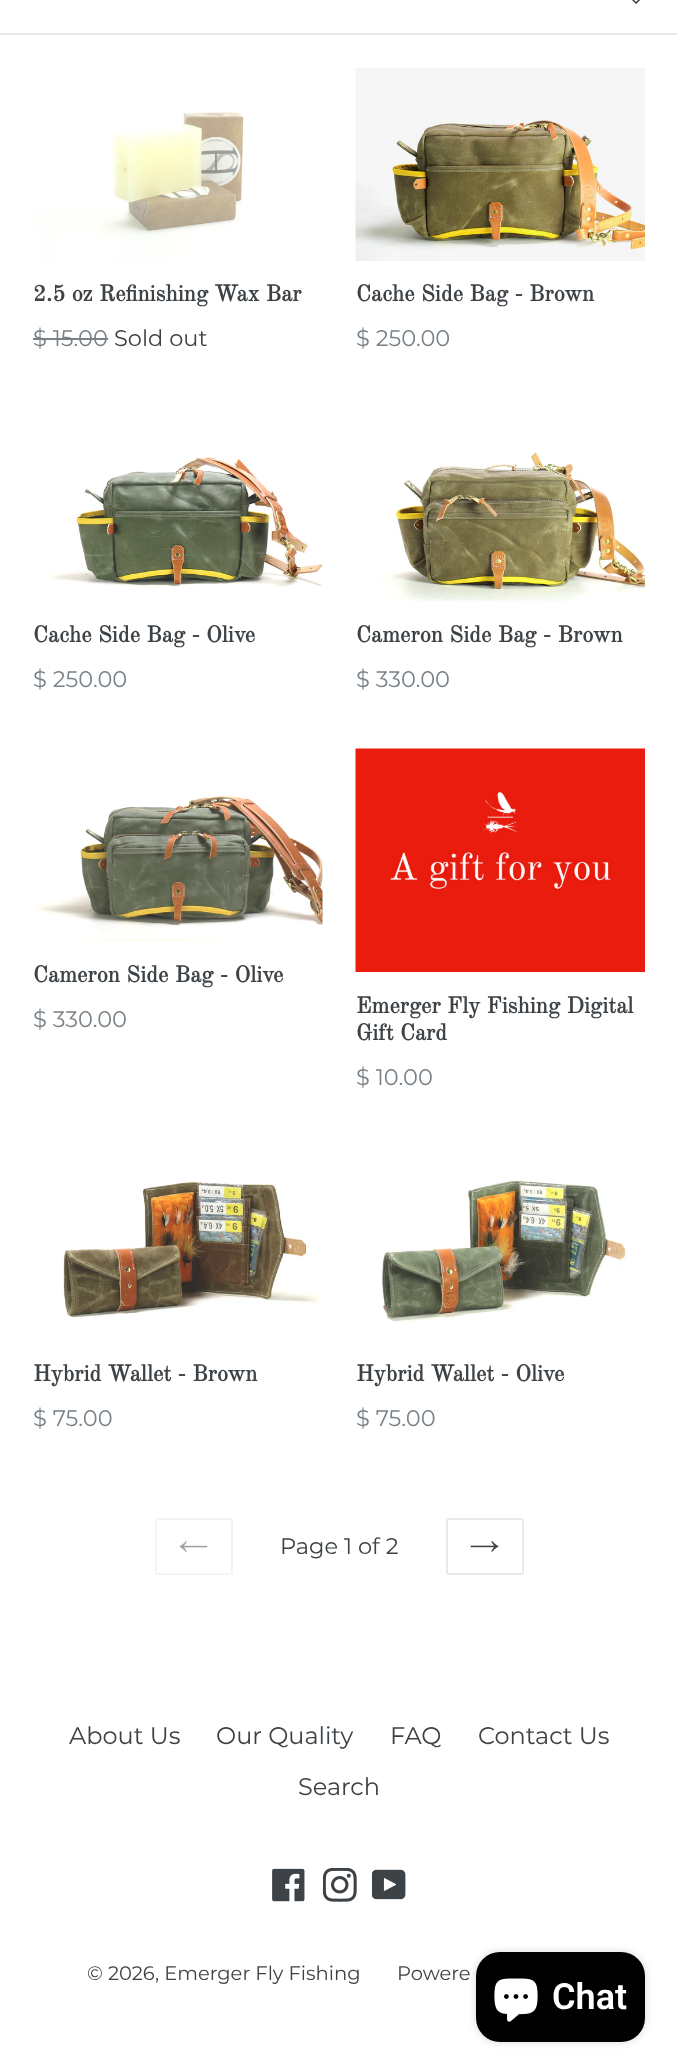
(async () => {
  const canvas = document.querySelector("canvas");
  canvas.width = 677;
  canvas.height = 2072;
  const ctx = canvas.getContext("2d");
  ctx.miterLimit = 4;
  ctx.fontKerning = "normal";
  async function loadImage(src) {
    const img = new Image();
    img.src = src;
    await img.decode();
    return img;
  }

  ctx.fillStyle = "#ffffff";
  ctx.fillRect(0, 0, 677, 2072);
  ctx.fillStyle = "#e8e9eb";
  ctx.fillRect(0, 33, 677, 2);
  ctx.drawImage(await loadImage("img/1.png"), 632, 0, 8, 4);
  ctx.drawImage(await loadImage("img/2.png"), 37, 111, 207, 150);
  ctx.fillStyle = "#788188";
  ctx.fillRect(33, 338, 75, 2);
  ctx.drawImage(await loadImage("img/3.png"), 355, 68, 290, 193);
  ctx.drawImage(await loadImage("img/4.png"), 47, 456, 276, 131);
  ctx.drawImage(await loadImage("img/5.png"), 379, 452, 266, 150);
  ctx.drawImage(await loadImage("img/6.png"), 33, 795, 290, 147);
  ctx.drawImage(await loadImage("img/7.png"), 355, 748, 290, 224);
  ctx.drawImage(await loadImage("img/8.png"), 63, 1181, 260, 137);
  ctx.drawImage(await loadImage("img/9.png"), 381, 1180, 247, 142);
  ctx.beginPath();
  ctx.roundRect(156, 1519, 76, 55, 2);
  ctx.strokeStyle = "#f4f4f5";
  ctx.lineWidth = 2;
  ctx.stroke();
  ctx.drawImage(await loadImage("img/10.png"), 179, 1541, 29, 11);
  ctx.beginPath();
  ctx.roundRect(447, 1519, 76, 55, 2);
  ctx.strokeStyle = "#e8e9eb";
  ctx.stroke();
  ctx.drawImage(await loadImage("img/11.png"), 470, 1541, 29, 11);
  ctx.drawImage(await loadImage("img/12.png"), 272, 1868, 33, 34);
  ctx.drawImage(await loadImage("img/13.png"), 323, 1868, 34, 34);
  ctx.drawImage(await loadImage("img/14.png"), 372, 1869, 34, 31);
  ctx.fillStyle = "rgba(0, 0, 0, 0.15)";
  ctx.filter = "blur(4px)";
  ctx.beginPath();
  ctx.roundRect(476, 1952, 169, 90, 24);
  ctx.fill();
  ctx.filter = "none";
  ctx.fillStyle = "#000000";
  ctx.beginPath();
  ctx.roundRect(476, 1952, 169, 90, 24);
  ctx.fill();
  ctx.drawImage(await loadImage("img/15.png"), 494, 1978, 44, 44);
  ctx.font = "bold 22.5px Old Standard TT";
  ctx.fillStyle = "#3d4246";
  ctx.fillText("2.5 oz Refinishing Wax Bar", 33, 301);
  ctx.font = "22.5px Montserrat";
  ctx.fillStyle = "#788188";
  ctx.fillText("$ 15.00", 33, 346);
  ctx.fillStyle = "#3d4246";
  ctx.fillText("Sold out", 114, 346);
  ctx.font = "bold 22.5px Old Standard TT";
  ctx.fillText("Cache Side Bag - Brown", 356, 301);
  ctx.font = "22.5px Montserrat";
  ctx.fillStyle = "#788188";
  ctx.fillText("$ 250.00", 356, 346);
  ctx.font = "bold 22.5px Old Standard TT";
  ctx.fillStyle = "#3d4246";
  ctx.fillText("Cache Side Bag - Olive", 33, 642);
  ctx.font = "22.5px Montserrat";
  ctx.fillStyle = "#788188";
  ctx.fillText("$ 250.00", 33, 687);
  ctx.font = "bold 22.5px Old Standard TT";
  ctx.fillStyle = "#3d4246";
  ctx.fillText("Cameron Side Bag - Brown", 356, 642);
  ctx.font = "22.5px Montserrat";
  ctx.fillStyle = "#788188";
  ctx.fillText("$ 330.00", 356, 687);
  ctx.font = "bold 22.5px Old Standard TT";
  ctx.fillStyle = "#3d4246";
  ctx.fillText("Cameron Side Bag - Olive", 33, 982);
  ctx.font = "22.5px Montserrat";
  ctx.fillStyle = "#788188";
  ctx.fillText("$ 330.00", 33, 1027);
  ctx.font = "bold 22.5px Old Standard TT";
  ctx.fillStyle = "#3d4246";
  ctx.fillText("Emerger Fly Fishing Digital", 356, 1013);
  ctx.fillText("Gift Card", 356, 1040);
  ctx.font = "22.5px Montserrat";
  ctx.fillStyle = "#788188";
  ctx.fillText("$ 10.00", 356, 1085);
  ctx.font = "bold 22.5px Old Standard TT";
  ctx.fillStyle = "#3d4246";
  ctx.fillText("Hybrid Wallet - Brown", 33, 1381);
  ctx.font = "22.5px Montserrat";
  ctx.fillStyle = "#788188";
  ctx.fillText("$ 75.00", 33, 1426);
  ctx.font = "bold 22.5px Old Standard TT";
  ctx.fillStyle = "#3d4246";
  ctx.fillText("Hybrid Wallet - Olive", 356, 1381);
  ctx.font = "22.5px Montserrat";
  ctx.fillStyle = "#788188";
  ctx.fillText("$ 75.00", 356, 1426);
  ctx.fillStyle = "#3d4246";
  ctx.fillText("Page 1 of 2", 280, 1554);
  ctx.font = "24px Montserrat";
  for (const [text, x, y] of [
    ["About Us", 69, 1744],
    ["Our Quality", 216, 1744],
    ["FAQ", 390, 1744],
    ["Contact Us", 478, 1744],
    ["Search", 298, 1795],
  ]) {
    ctx.fillText(text, x, y);
  }
  ctx.font = "19.5px Montserrat";
  ctx.fillText("© 2026, Emerger Fly Fishing", 87, 1980);
  ctx.fillText("Powere", 397, 1980);
  ctx.font = "600 36px Roboto";
  ctx.fillStyle = "#ffffff";
  ctx.fillText("Chat", 552, 2009);
})();
